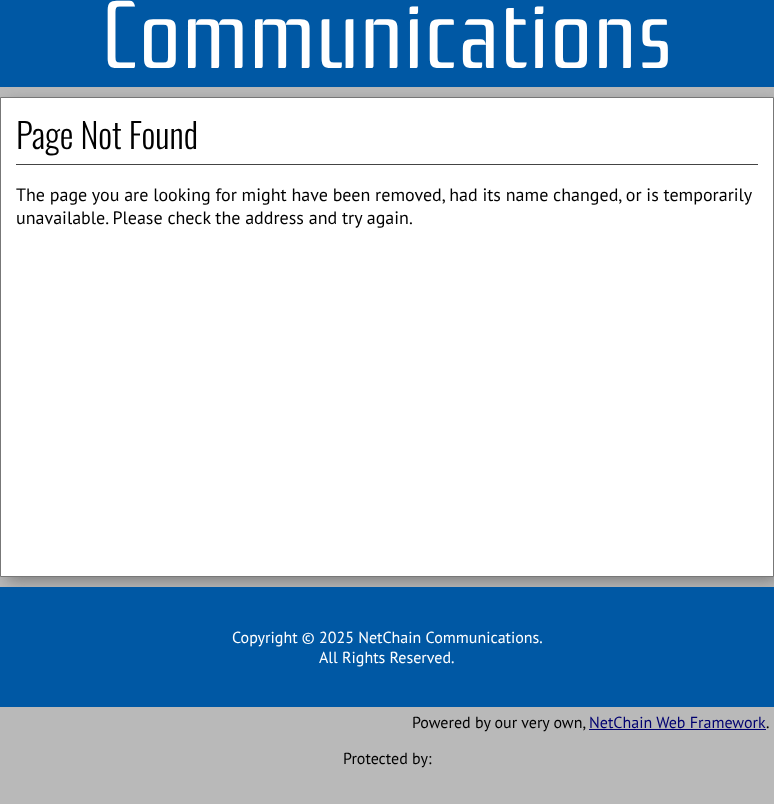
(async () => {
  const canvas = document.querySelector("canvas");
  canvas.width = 774;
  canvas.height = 804;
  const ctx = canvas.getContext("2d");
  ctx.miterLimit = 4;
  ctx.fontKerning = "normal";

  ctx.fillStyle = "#b9b9b9";
  ctx.fillRect(0, 0, 774, 804);
  ctx.fillStyle = "#0058a4";
  ctx.fillRect(0, 0, 774, 87);
  ctx.fillStyle = "#777777";
  ctx.filter = "blur(8px)";
  ctx.beginPath();
  ctx.rect(7, 104, 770, 476);
  ctx.fill();
  ctx.filter = "none";
  ctx.fillStyle = "#ffffff";
  ctx.beginPath();
  ctx.rect(0.5, 97.5, 773, 479);
  ctx.fill();
  ctx.strokeStyle = "#777777";
  ctx.stroke();
  for (const [x, y, w, h, color] of [
    [16, 164, 742, 1, "#444444"],
    [0, 587, 774, 120, "#0058a4"],
    [589, 729, 177, 1, "#000070"],
  ]) {
    ctx.fillStyle = color;
    ctx.fillRect(x, y, w, h);
  }
  ctx.font = "96px Rationale";
  ctx.fillStyle = "#ffffff";
  ctx.fillText("Communications", 101, 68);
  ctx.font = "300 34.5px Oswald";
  ctx.fillStyle = "#000000";
  ctx.fillText("Page Not Found", 16, 149);
  ctx.font = "18px PT Sans";
  ctx.fillText("The page you are looking for might have been removed, had its name changed, or is temporarily", 16, 201);
  ctx.fillText("unavailable. Please check the address and try again.", 16, 224);
  ctx.font = "16px PT Sans";
  ctx.fillStyle = "#ffffff";
  ctx.fillText("Copyright © 2025 NetChain Communications.", 232, 643);
  ctx.fillText("All Rights Reserved.", 319, 663);
  ctx.fillStyle = "#000000";
  ctx.fillText("Powered by our very own,", 412, 728);
  ctx.fillStyle = "#000070";
  ctx.fillText("NetChain Web Framework", 589, 728);
  ctx.fillStyle = "#000000";
  ctx.fillText(".", 766, 728);
  ctx.fillText("Protected by:", 343, 764);
})();
